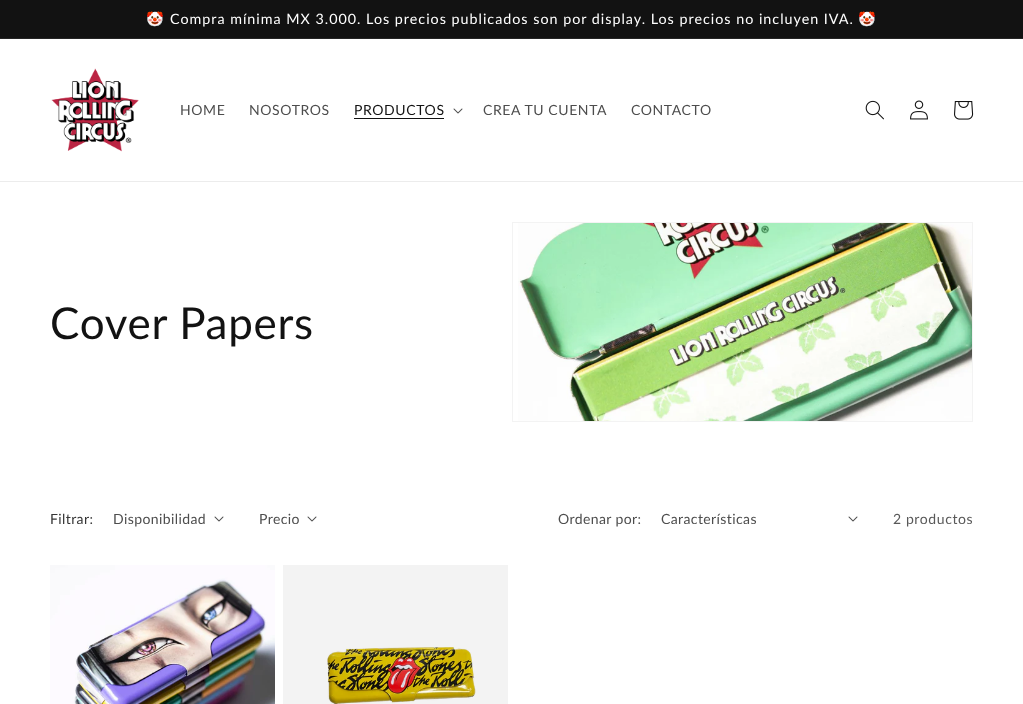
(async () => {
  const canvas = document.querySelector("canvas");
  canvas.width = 1023;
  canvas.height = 704;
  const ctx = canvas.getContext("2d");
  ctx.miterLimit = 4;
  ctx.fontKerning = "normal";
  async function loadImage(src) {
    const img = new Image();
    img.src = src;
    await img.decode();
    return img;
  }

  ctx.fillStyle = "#ffffff";
  ctx.fillRect(0, 0, 1023, 704);
  for (const [x, y, w, h, color] of [
    [0, 0, 1023, 38, "#121212"],
    [0, 38, 1023, 1, "#252525"],
    [0, 181, 1023, 1, "#ececec"],
  ]) {
    ctx.fillStyle = color;
    ctx.fillRect(x, y, w, h);
  }
  ctx.drawImage(await loadImage("img/1.png"), 51, 68, 88, 84);
  ctx.fillStyle = "#121212";
  ctx.fillRect(354, 118, 90, 1);
  ctx.drawImage(await loadImage("img/2.png"), 453, 108, 10, 6);
  ctx.drawImage(await loadImage("img/3.png"), 865, 100, 19, 20);
  ctx.drawImage(await loadImage("img/4.png"), 910, 100, 18, 20);
  ctx.drawImage(await loadImage("img/5.png"), 954, 101, 20, 19);
  ctx.strokeStyle = "#f3f3f3";
  ctx.strokeRect(512.5, 222.5, 460, 199);
  ctx.drawImage(await loadImage("img/6.png"), 518, 223, 454, 198);
  ctx.drawImage(await loadImage("img/2.png"), 214, 516, 10, 6);
  ctx.drawImage(await loadImage("img/2.png"), 307, 516, 10, 6);
  ctx.drawImage(await loadImage("img/2.png"), 848, 516, 10, 6);
  ctx.drawImage(await loadImage("img/7.png"), 50, 565, 225, 139);
  ctx.fillStyle = "#f3f3f3";
  ctx.fillRect(283, 565, 225, 139);
  ctx.drawImage(await loadImage("img/8.png"), 327, 647, 149, 57);
  ctx.letterSpacing = "1px";
  ctx.font = "14.3px Noto Color Emoji";
  ctx.fillStyle = "#ffffff";
  ctx.fillText("🤡", 146, 24);
  ctx.font = "14.3px Lato";
  ctx.fillText("Compra mínima MX 3.000. Los precios publicados son por display. Los precios no incluyen IVA.", 170, 24);
  ctx.font = "14.3px Noto Color Emoji";
  ctx.fillText("🤡", 858, 24);
  ctx.letterSpacing = "0.6px";
  ctx.font = "14px Lato";
  ctx.fillStyle = "#4d4d4d";
  ctx.fillText("HOME", 180, 115);
  ctx.fillText("NOSOTROS", 249, 115);
  ctx.fillStyle = "#121212";
  ctx.fillText("PRODUCTOS", 354, 115);
  ctx.fillStyle = "#4d4d4d";
  ctx.fillText("CREA TU CUENTA", 483, 115);
  ctx.fillText("CONTACTO", 631, 115);
  ctx.letterSpacing = "0.7px";
  ctx.font = "44px Lato";
  ctx.fillStyle = "#121212";
  ctx.fillText("Cover Papers", 50, 339);
  ctx.letterSpacing = "0.4px";
  ctx.font = "14px Lato";
  ctx.fillStyle = "#363636";
  ctx.fillText("Filtrar:", 50, 524);
  ctx.fillStyle = "#4d4d4d";
  for (const [text, x, y] of [
    ["Disponibilidad", 113, 524],
    ["Precio", 259, 524],
    ["Ordenar por:", 558, 524],
    ["Características", 661, 524],
  ]) {
    ctx.fillText(text, x, y);
  }
  ctx.letterSpacing = "0.6px";
  ctx.fillStyle = "#595959";
  ctx.fillText("2 productos", 893, 524);
})();
